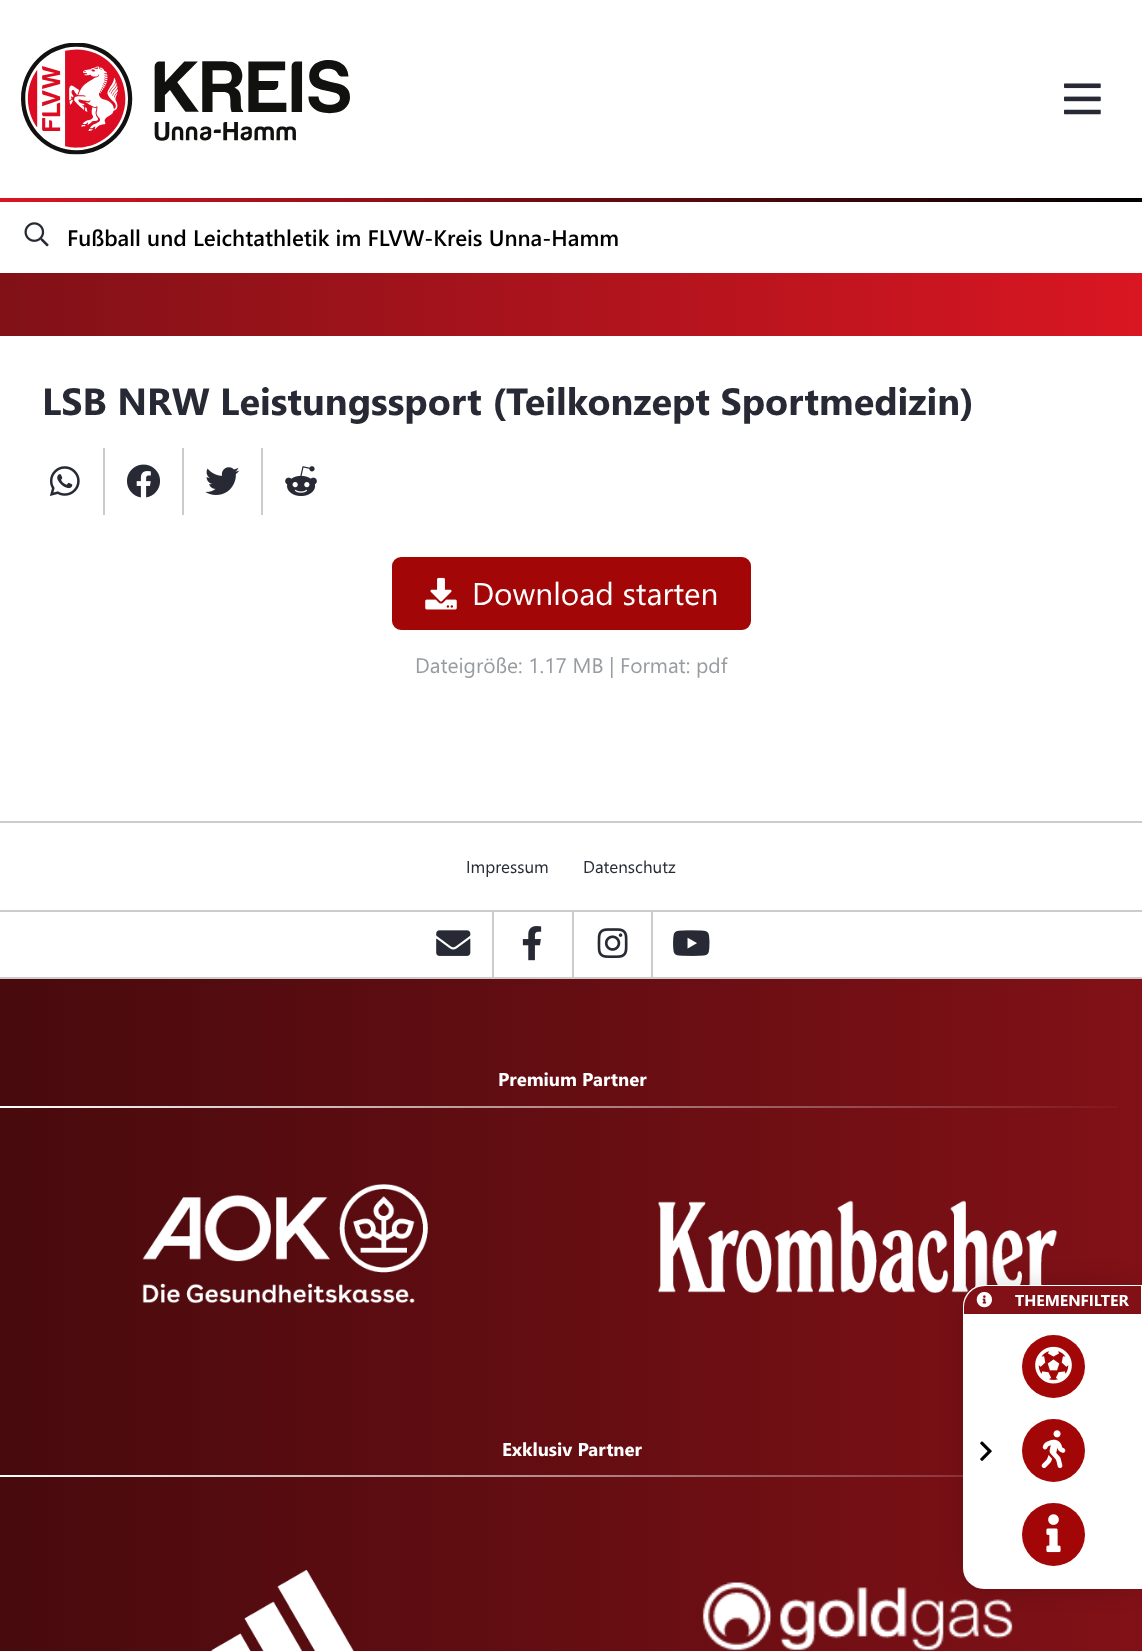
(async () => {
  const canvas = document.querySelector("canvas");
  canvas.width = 1142;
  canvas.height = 1651;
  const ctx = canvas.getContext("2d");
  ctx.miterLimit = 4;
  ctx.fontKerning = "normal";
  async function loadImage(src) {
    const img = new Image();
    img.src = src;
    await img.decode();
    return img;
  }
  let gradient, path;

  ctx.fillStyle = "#ffffff";
  ctx.fillRect(0, 0, 1142, 1651);
  ctx.drawImage(await loadImage("img/1.png"), 21, 43, 329, 112);
  ctx.drawImage(await loadImage("img/2.png"), 1064, 83, 37, 32);
  gradient = ctx.createLinearGradient(0, 200, 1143, 199);
  gradient.addColorStop(0, "#d91622");
  gradient.addColorStop(1, "#000000");
  ctx.fillStyle = gradient;
  ctx.fillRect(0, 198, 1142, 4);
  ctx.drawImage(await loadImage("img/3.png"), 24, 222, 25, 25);
  gradient = ctx.createLinearGradient(0, 305, 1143, 304);
  gradient.addColorStop(0, "#811117");
  gradient.addColorStop(1, "#d91622");
  ctx.fillStyle = gradient;
  ctx.fillRect(0, 273, 1142, 63);
  ctx.drawImage(await loadImage("img/4.png"), 49, 466, 31, 30);
  ctx.fillStyle = "#cccccc";
  ctx.fillRect(103, 448, 2, 67);
  ctx.drawImage(await loadImage("img/5.png"), 127, 464, 33, 34);
  ctx.fillRect(182, 448, 2, 67);
  ctx.drawImage(await loadImage("img/6.png"), 205, 467, 35, 28);
  ctx.fillRect(261, 448, 2, 67);
  ctx.drawImage(await loadImage("img/7.png"), 285, 466, 32, 31);
  ctx.fillStyle = "#a20606";
  ctx.beginPath();
  ctx.roundRect(393, 558, 357, 71, 8);
  ctx.fill();
  ctx.strokeStyle = "#a20606";
  ctx.lineWidth = 2;
  ctx.stroke();
  ctx.drawImage(await loadImage("img/8.png"), 425, 577, 32, 33);
  for (const [x, y, w, h, color] of [
    [0, 821, 1142, 2, "#cccccc"],
    [0, 910, 1142, 2, "#cccccc"],
    [0, 977, 1142, 2, "#cccccc"],
  ]) {
    ctx.fillStyle = color;
    ctx.fillRect(x, y, w, h);
  }
  ctx.drawImage(await loadImage("img/9.png"), 436, 930, 35, 26);
  ctx.fillRect(492, 912, 2, 65);
  ctx.drawImage(await loadImage("img/10.png"), 522, 926, 20, 35);
  ctx.fillRect(572, 912, 2, 65);
  ctx.drawImage(await loadImage("img/11.png"), 597, 928, 31, 31);
  ctx.fillRect(651, 912, 2, 65);
  ctx.drawImage(await loadImage("img/12.png"), 673, 930, 37, 26);
  gradient = ctx.createLinearGradient(0, 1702, 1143, 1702);
  gradient.addColorStop(0, "#480a0d");
  gradient.addColorStop(1, "#811117");
  ctx.fillStyle = gradient;
  ctx.fillRect(0, 979, 1142, 672);
  gradient = ctx.createLinearGradient(0, 1107, 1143, 1107);
  gradient.addColorStop(0, "#ffffff");
  gradient.addColorStop(1, "rgba(255, 255, 255, 0)");
  ctx.fillStyle = gradient;
  ctx.fillRect(0, 1106, 1118, 2);
  ctx.drawImage(await loadImage("img/13.png"), 142, 1184, 286, 120);
  ctx.drawImage(await loadImage("img/14.png"), 658, 1200, 400, 93);
  gradient = ctx.createLinearGradient(0, 1476, 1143, 1476);
  gradient.addColorStop(0, "#ffffff");
  gradient.addColorStop(1, "rgba(255, 255, 255, 0)");
  ctx.fillStyle = gradient;
  ctx.fillRect(0, 1475, 963, 2);
  ctx.drawImage(await loadImage("img/15.png"), 211, 1569, 143, 82);
  ctx.drawImage(await loadImage("img/16.png"), 702, 1582, 311, 69);
  ctx.fillStyle = "rgba(0, 0, 0, 0.14)";
  ctx.filter = "blur(12px)";
  ctx.beginPath();
  ctx.roundRect(963, 1285, 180, 304, 21);
  ctx.fill();
  ctx.filter = "none";
  ctx.fillStyle = "#ffffff";
  path = new Path2D("M984 1286H1142V1588H984C973 1588 964 1579 964 1568V1306C964 1295 973 1286 984 1286Z");
  ctx.fill(path);
  ctx.strokeStyle = "#ffffff";
  ctx.stroke(path);
  ctx.fillStyle = "#811117";
  ctx.beginPath();
  ctx.roundRect(964, 1286, 177, 28, [21, 0, 0, 0]);
  ctx.fill();
  ctx.drawImage(await loadImage("img/17.png"), 976, 1292, 16, 16);
  ctx.fillStyle = "#a20606";
  ctx.beginPath();
  ctx.arc(1053.5, 1366.5, 31.5, 0, Math.PI * 2);
  ctx.fill();
  ctx.drawImage(await loadImage("img/18.png"), 1035, 1346, 37, 38);
  ctx.drawImage(await loadImage("img/19.png"), 980, 1441, 12, 20);
  ctx.beginPath();
  ctx.arc(1053.5, 1450.5, 31.5, 0, Math.PI * 2);
  ctx.fill();
  ctx.drawImage(await loadImage("img/20.png"), 1041, 1430, 25, 39);
  ctx.beginPath();
  ctx.arc(1053.5, 1534.5, 31.5, 0, Math.PI * 2);
  ctx.fill();
  ctx.drawImage(await loadImage("img/21.png"), 1046, 1514, 15, 39);
  ctx.font = "600 22.4px Segoe UI";
  ctx.fillStyle = "#000000";
  ctx.fillText("Fußball und Leichtathletik im FLVW-Kreis Unna-Hamm", 67, 246);
  ctx.font = "bold 37.8px Segoe UI";
  ctx.fillStyle = "#272a35";
  ctx.fillText("LSB NRW Leistungssport (Teilkonzept Sportmedizin)", 42, 415);
  ctx.font = "31.5px Segoe UI";
  ctx.fillStyle = "#ffffff";
  ctx.fillText("Download starten", 472, 605);
  ctx.font = "21px Segoe UI";
  ctx.fillStyle = "#989ca0";
  ctx.fillText("Dateigröße: 1.17 MB | Format: pdf", 415, 673);
  ctx.font = "17px Segoe UI";
  ctx.fillStyle = "#272a35";
  ctx.fillText("Impressum", 466, 873);
  ctx.fillText("Datenschutz", 583, 873);
  ctx.font = "bold 18.5px Segoe UI";
  ctx.fillStyle = "#ffffff";
  ctx.fillText("Premium Partner", 498, 1086);
  ctx.fillText("Exklusiv Partner", 502, 1456);
  ctx.font = "bold 15.75px Segoe UI";
  ctx.fillText("THEMENFILTER", 1015, 1306);
})();
